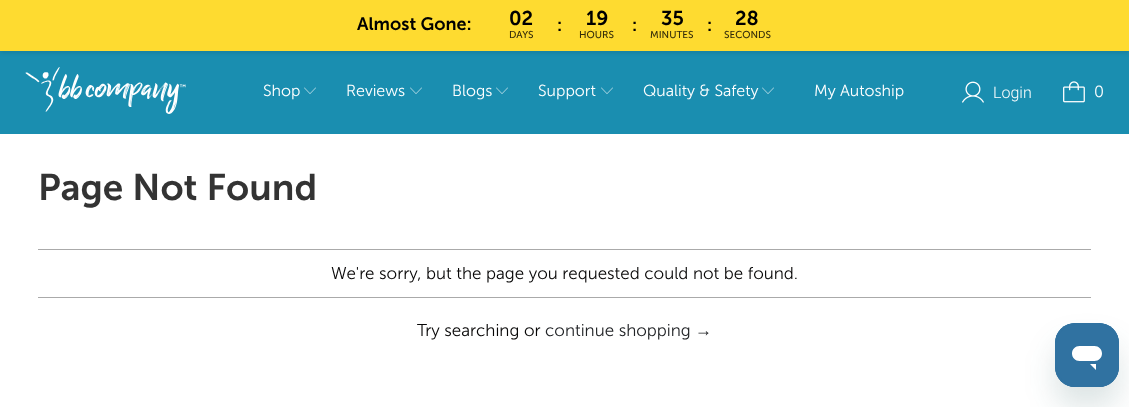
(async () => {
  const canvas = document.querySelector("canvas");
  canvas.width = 1129;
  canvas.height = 407;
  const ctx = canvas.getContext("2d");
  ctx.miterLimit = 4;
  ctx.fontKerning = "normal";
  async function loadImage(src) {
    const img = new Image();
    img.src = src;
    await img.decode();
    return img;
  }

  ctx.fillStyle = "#ffffff";
  ctx.fillRect(0, 0, 1129, 407);
  ctx.fillStyle = "#1a8eb0";
  ctx.fillRect(0, 51, 1129, 83);
  ctx.fillStyle = "rgba(0, 0, 0, 0.1)";
  ctx.filter = "blur(2px)";
  ctx.beginPath();
  ctx.rect(0, 2, 1129, 51);
  ctx.fill();
  ctx.filter = "none";
  ctx.fillStyle = "#fedb30";
  ctx.fillRect(0, 0, 1129, 51);
  ctx.drawImage(await loadImage("img/1.png"), 25, 67, 161, 47);
  ctx.drawImage(await loadImage("img/2.png"), 304, 87, 12, 7);
  ctx.drawImage(await loadImage("img/2.png"), 410, 87, 12, 7);
  ctx.drawImage(await loadImage("img/2.png"), 496, 87, 12, 7);
  ctx.drawImage(await loadImage("img/2.png"), 601, 87, 12, 7);
  ctx.drawImage(await loadImage("img/2.png"), 762, 87, 12, 7);
  ctx.drawImage(await loadImage("img/3.png"), 962, 81, 22, 22);
  ctx.drawImage(await loadImage("img/4.png"), 1063, 81, 22, 22);
  ctx.fillStyle = "#aaaaaa";
  ctx.fillRect(38, 249, 1053, 1);
  ctx.fillRect(38, 297, 1053, 1);
  ctx.fillStyle = "rgba(23, 73, 77, 0.15)";
  ctx.filter = "blur(15px)";
  ctx.beginPath();
  ctx.roundRect(1055, 343, 64, 64, 20);
  ctx.fill();
  ctx.filter = "none";
  ctx.drawImage(await loadImage("img/5.png"), 1055, 323, 64, 64);
  ctx.font = "600 18px 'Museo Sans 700'";
  ctx.fillStyle = "#000000";
  ctx.fillText("Almost Gone:", 357, 30);
  ctx.font = "600 20px 'Museo Sans 700'";
  ctx.fillText("02", 509, 25);
  ctx.font = "10px Museo Sans";
  ctx.fillStyle = "#332c0a";
  ctx.fillText("DAYS", 509, 38);
  ctx.font = "600 18px 'Museo Sans 700'";
  ctx.fillStyle = "#000000";
  ctx.fillText(":", 557, 31);
  ctx.font = "600 20px 'Museo Sans 700'";
  ctx.fillText("19", 586, 25);
  ctx.font = "10px Museo Sans";
  ctx.fillStyle = "#332c0a";
  ctx.fillText("HOURS", 579, 38);
  ctx.font = "600 18px 'Museo Sans 700'";
  ctx.fillStyle = "#000000";
  ctx.fillText(":", 632, 31);
  ctx.font = "600 20px 'Museo Sans 700'";
  ctx.fillText("35", 661, 25);
  ctx.font = "10px Museo Sans";
  ctx.fillStyle = "#332c0a";
  ctx.fillText("MINUTES", 650, 38);
  ctx.font = "600 18px 'Museo Sans 700'";
  ctx.fillStyle = "#000000";
  ctx.fillText(":", 707, 31);
  ctx.font = "600 20px 'Museo Sans 700'";
  ctx.fillText("28", 735, 25);
  ctx.font = "10px Museo Sans";
  ctx.fillStyle = "#332c0a";
  ctx.fillText("SECONDS", 724, 38);
  ctx.font = "300 16px Museo Sans";
  ctx.fillStyle = "#ffffff";
  for (const [text, x, y] of [
    ["Shop", 263, 96],
    ["Reviews", 346, 96],
    ["Blogs", 452, 96],
    ["Support", 538, 96],
    ["Quality & Safety", 643, 96],
    ["My Autoship", 814, 96],
  ]) {
    ctx.fillText(text, x, y);
  }
  ctx.font = "300 16px Roboto";
  ctx.fillText("Login", 993, 98);
  ctx.font = "300 16px Museo Sans";
  ctx.fillText("0", 1094, 97);
  ctx.font = "600 37px 'Museo Sans 700'";
  ctx.fillStyle = "#333333";
  ctx.fillText("Page Not Found", 38, 200);
  ctx.font = "300 17px Museo Sans";
  ctx.fillStyle = "#070606";
  ctx.fillText("We're sorry, but the page you requested could not be found.", 331, 279);
  ctx.fillText("Try searching or", 417, 336);
  ctx.fillStyle = "#222427";
  ctx.fillText("continue shopping", 545, 336);
  ctx.font = "17px Liberation Sans";
  ctx.fillText("→", 695, 336);
})();
